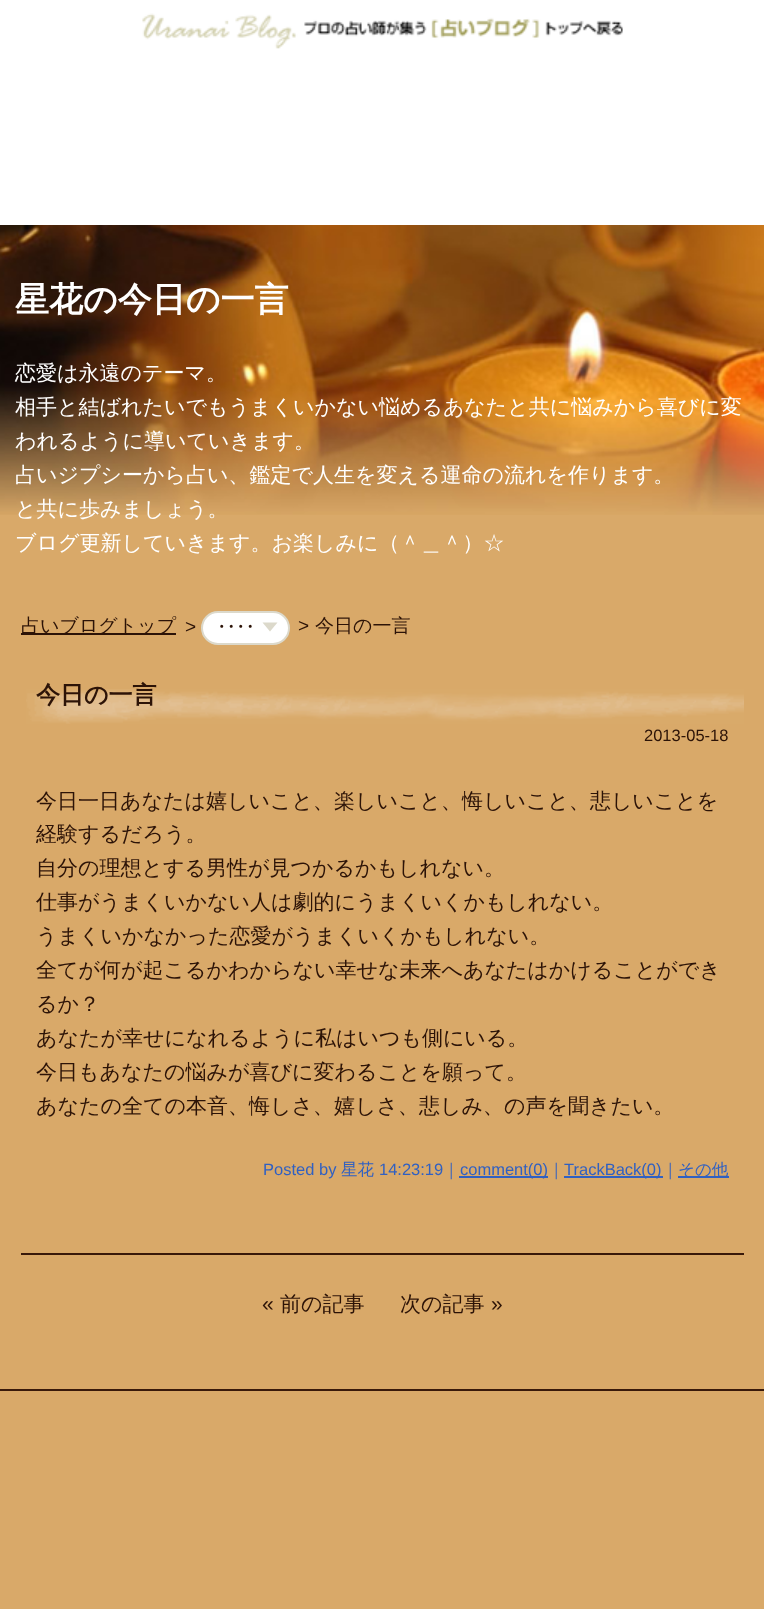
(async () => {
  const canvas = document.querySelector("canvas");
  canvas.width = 764;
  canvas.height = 1609;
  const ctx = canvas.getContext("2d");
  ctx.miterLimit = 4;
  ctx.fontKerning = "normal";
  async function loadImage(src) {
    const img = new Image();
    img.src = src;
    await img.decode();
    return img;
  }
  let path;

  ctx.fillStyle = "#ffffff";
  ctx.fillRect(0, 0, 764, 1609);
  ctx.drawImage(await loadImage("img/1.png"), 142, 13, 481, 36);
  ctx.fillStyle = "#d9a969";
  ctx.fillRect(0, 515, 764, 1094);
  ctx.drawImage(await loadImage("img/2.png"), 0, 225, 764, 290);
  ctx.fillStyle = "#2c1307";
  ctx.fillRect(21, 633, 155, 2);
  ctx.fillStyle = "#ffffff";
  ctx.beginPath();
  ctx.roundRect(202, 612, 87, 32, 16);
  ctx.fill();
  ctx.strokeStyle = "#dcd9cb";
  ctx.lineWidth = 2;
  ctx.stroke();
  ctx.fillStyle = "#dcd9cb";
  path = new Path2D("M262.5 622.5H277.5L270 631.5Z");
  ctx.fill(path);
  ctx.drawImage(await loadImage("img/3.png"), 26, 689, 718, 35);
  for (const [x, y, w, h, color] of [
    [459, 1176, 89, 2, "#3060c2"],
    [564, 1176, 99, 2, "#3060c2"],
    [678, 1176, 51, 2, "#3060c2"],
    [21, 1253, 723, 2, "#39190a"],
    [0, 1389, 764, 2, "#39190a"],
  ]) {
    ctx.fillStyle = color;
    ctx.fillRect(x, y, w, h);
  }
  ctx.font = "bold 34px WenQuanYi Zen Hei";
  ctx.fillStyle = "#ffffff";
  ctx.fillText("星花の今日の一言", 15, 311);
  ctx.font = "500 21px WenQuanYi Zen Hei";
  for (const [text, x, y] of [
    ["恋愛は永遠のテーマ。", 15, 380],
    ["相手と結ばれたいでもうまくいかない悩めるあなたと共に悩みから喜びに変", 15, 414],
    ["われるように導いていきます。", 15, 448],
    ["占いジプシーから占い、鑑定で人生を変える運命の流れを作ります。", 15, 482],
    ["と共に歩みましょう。", 15, 516],
    ["ブログ更新していきます。お楽しみに（＾＿＾）☆", 15, 550],
  ]) {
    ctx.fillText(text, x, y);
  }
  ctx.font = "500 19px WenQuanYi Zen Hei";
  ctx.fillStyle = "#2c1307";
  ctx.fillText("占いブログトップ", 21, 632);
  ctx.font = "19px Liberation Sans";
  ctx.fillText(">", 185, 633);
  ctx.letterSpacing = "-9.5px";
  ctx.font = "500 19px WenQuanYi Zen Hei";
  ctx.fillText("・・・・", 212, 633);
  ctx.letterSpacing = "0px";
  ctx.font = "19px Liberation Sans";
  ctx.fillText(">", 298, 632);
  ctx.font = "500 19px WenQuanYi Zen Hei";
  ctx.fillText("今日の一言", 315, 632);
  ctx.font = "bold 24px WenQuanYi Zen Hei";
  ctx.fillText("今日の一言", 36, 703);
  ctx.font = "16.5px Liberation Sans";
  ctx.fillText("2013-05-18", 644, 741);
  ctx.font = "500 21px WenQuanYi Zen Hei";
  for (const [text, x, y] of [
    ["今日一日あなたは嬉しいこと、楽しいこと、悔しいこと、悲しいことを", 36, 808],
    ["経験するだろう。", 36, 841],
    ["自分の理想とする男性が見つかるかもしれない。", 36, 875],
    ["仕事がうまくいかない人は劇的にうまくいくかもしれない。", 36, 909],
    ["うまくいかなかった恋愛がうまくいくかもしれない。", 36, 943],
    ["全てが何が起こるかわからない幸せな未来へあなたはかけることができ", 36, 977],
    ["るか？", 36, 1011],
    ["あなたが幸せになれるように私はいつも側にいる。", 36, 1045],
    ["今日もあなたの悩みが喜びに変わることを願って。", 36, 1079],
    ["あなたの全ての本音、悔しさ、嬉しさ、悲しみ、の声を聞きたい。", 36, 1113],
  ]) {
    ctx.fillText(text, x, y);
  }
  ctx.font = "16.5px Liberation Sans";
  ctx.fillStyle = "#3060c2";
  ctx.fillText("Posted by", 263, 1175);
  ctx.font = "500 16.5px WenQuanYi Zen Hei";
  ctx.fillText("星花", 341, 1175);
  ctx.font = "16.5px Liberation Sans";
  ctx.fillText("14:23:19", 379, 1175);
  ctx.font = "500 16.5px WenQuanYi Zen Hei";
  ctx.fillText("｜", 443, 1175);
  ctx.font = "16.5px Liberation Sans";
  ctx.fillText("comment(0)", 460, 1175);
  ctx.font = "500 16.5px WenQuanYi Zen Hei";
  ctx.fillText("｜", 548, 1175);
  ctx.font = "16.5px Liberation Sans";
  ctx.fillText("TrackBack(0)", 564, 1175);
  ctx.font = "500 16.5px WenQuanYi Zen Hei";
  ctx.fillText("｜", 662, 1175);
  ctx.fillText("その他", 678, 1175);
  ctx.font = "21px Liberation Sans";
  ctx.fillStyle = "#2c1307";
  ctx.fillText("«", 262, 1311);
  ctx.font = "500 21px WenQuanYi Zen Hei";
  ctx.fillText("前の記事", 280, 1311);
  ctx.fillText("次の記事", 400, 1311);
  ctx.font = "21px Liberation Sans";
  ctx.fillText("»", 491, 1311);
})();
